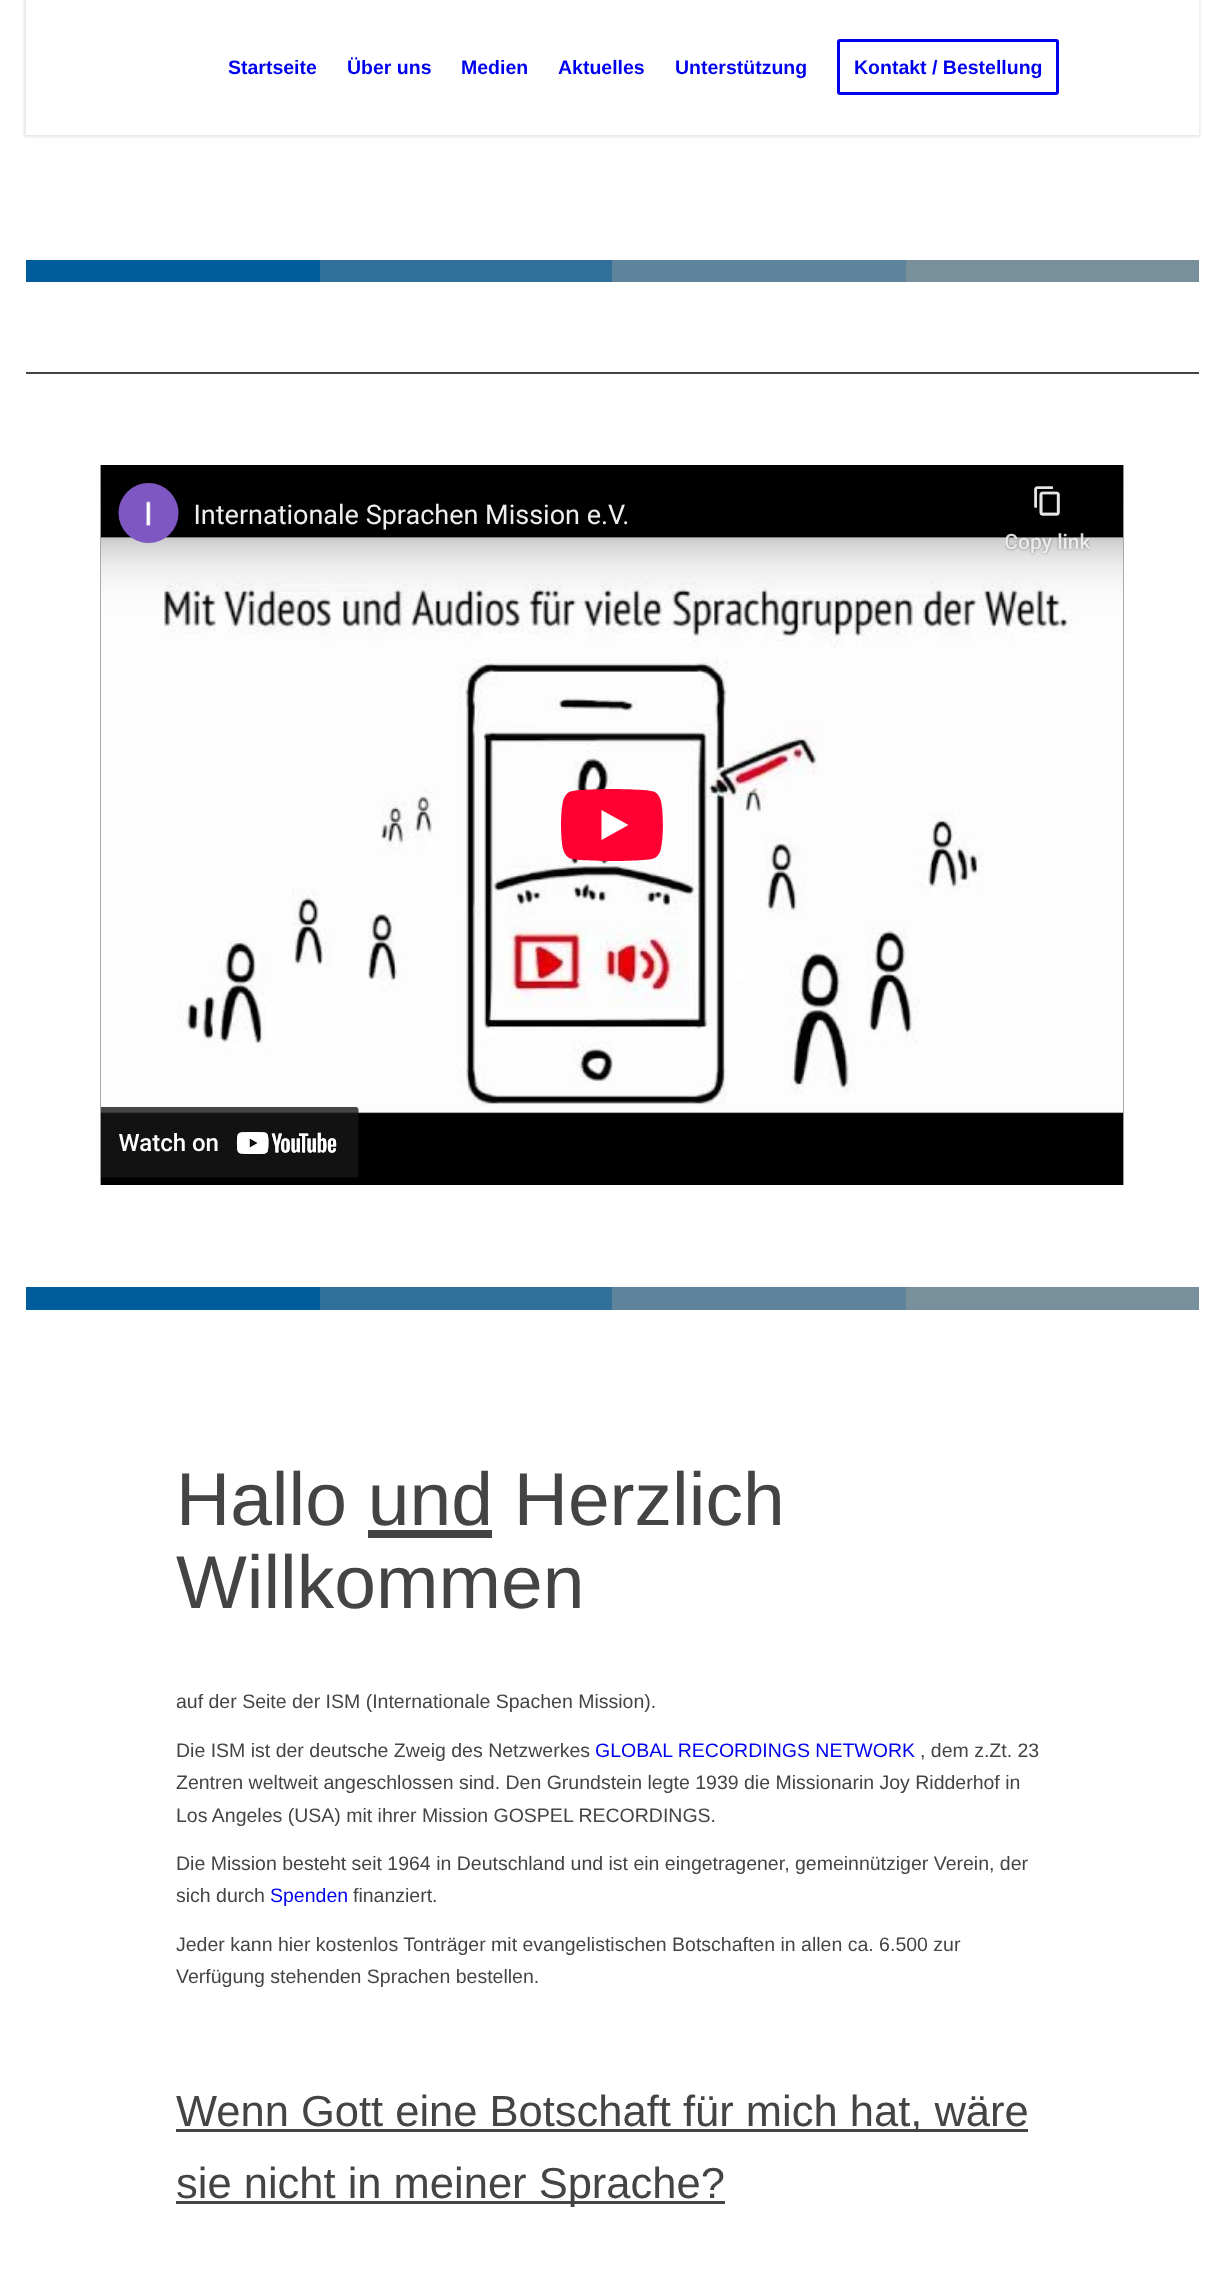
(async () => {
  const canvas = document.querySelector("canvas");
  canvas.width = 1224;
  canvas.height = 2284;
  const ctx = canvas.getContext("2d");
  ctx.miterLimit = 4;
  ctx.fontKerning = "normal";
  async function loadImage(src) {
    const img = new Image();
    img.src = src;
    await img.decode();
    return img;
  }
  let path;

  ctx.fillStyle = "#ffffff";
  ctx.fillRect(0, 0, 1224, 2284);
  ctx.save();
  path = new Path2D("M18 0H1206V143H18ZM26 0H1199V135H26Z");
  ctx.clip(path, "evenodd");
  ctx.fillStyle = "rgba(0, 0, 0, 0.1)";
  ctx.filter = "blur(1.5px)";
  ctx.beginPath();
  ctx.rect(24, -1, 1176, 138);
  ctx.fill();
  ctx.filter = "none";
  ctx.restore();
  ctx.beginPath();
  ctx.roundRect(838.5, 40.5, 219, 53, 1.5);
  ctx.strokeStyle = "#0000ee";
  ctx.lineWidth = 3;
  ctx.stroke();
  for (const [x, y, w, h, color] of [
    [26, 260, 294, 22, "#005d9b"],
    [320, 260, 292, 22, "#30709b"],
    [612, 260, 294, 22, "#5e849b"],
    [906, 260, 293, 22, "#77909b"],
    [26, 372, 1173, 2, "#444444"],
  ]) {
    ctx.fillStyle = color;
    ctx.fillRect(x, y, w, h);
  }
  ctx.drawImage(await loadImage("img/1.png"), 100, 465, 1024, 720);
  for (const [x, y, w, h, color] of [
    [26, 1287, 294, 23, "#005d9b"],
    [320, 1287, 292, 23, "#30709b"],
    [612, 1287, 294, 23, "#5e849b"],
    [906, 1287, 293, 23, "#77909b"],
    [368, 1530, 124, 8, "#444444"],
    [176, 2129, 852, 3, "#444444"],
    [176, 2201, 549, 3, "#444444"],
  ]) {
    ctx.fillStyle = color;
    ctx.fillRect(x, y, w, h);
  }
  ctx.font = "bold 19.5px Liberation Sans";
  ctx.fillStyle = "#0000ee";
  for (const [text, x, y] of [
    ["Startseite", 228, 74],
    ["Über uns", 347, 74],
    ["Medien", 461, 74],
    ["Aktuelles", 558, 74],
    ["Unterstützung", 675, 74],
    ["Kontakt / Bestellung", 854, 74],
  ]) {
    ctx.fillText(text, x, y);
  }
  ctx.font = "75px Liberation Sans";
  ctx.fillStyle = "#444444";
  ctx.fillText("Hallo und Herzlich", 176, 1525);
  ctx.fillText("Willkommen", 176, 1608);
  ctx.font = "19.5px Liberation Sans";
  ctx.fillText("auf der Seite der ISM (Internationale Spachen Mission).", 176, 1708);
  ctx.fillText("Die ISM ist der deutsche Zweig des Netzwerkes", 176, 1757);
  ctx.fillStyle = "#0000ee";
  ctx.fillText("GLOBAL RECORDINGS NETWORK", 595, 1757);
  ctx.fillStyle = "#444444";
  for (const [text, x, y] of [
    [", dem z.Zt. 23", 920, 1757],
    ["Zentren weltweit angeschlossen sind. Den Grundstein legte 1939 die Missionarin Joy Ridderhof in", 176, 1789],
    ["Los Angeles (USA) mit ihrer Mission GOSPEL RECORDINGS.", 176, 1822],
    ["Die Mission besteht seit 1964 in Deutschland und ist ein eingetragener, gemeinnütziger Verein, der", 176, 1870],
    ["sich durch", 176, 1902],
  ]) {
    ctx.fillText(text, x, y);
  }
  ctx.fillStyle = "#0000ee";
  ctx.fillText("Spenden", 270, 1902);
  ctx.fillStyle = "#444444";
  for (const [text, x, y] of [
    ["finanziert.", 353, 1902],
    ["Jeder kann hier kostenlos Tonträger mit evangelistischen Botschaften in allen ca. 6.500 zur", 176, 1951],
    ["Verfügung stehenden Sprachen bestellen.", 176, 1983],
  ]) {
    ctx.fillText(text, x, y);
  }
  ctx.font = "43.5px Liberation Sans";
  ctx.fillText("Wenn Gott eine Botschaft für mich hat, wäre", 176, 2126);
  ctx.fillText("sie nicht in meiner Sprache?", 176, 2198);
})();
